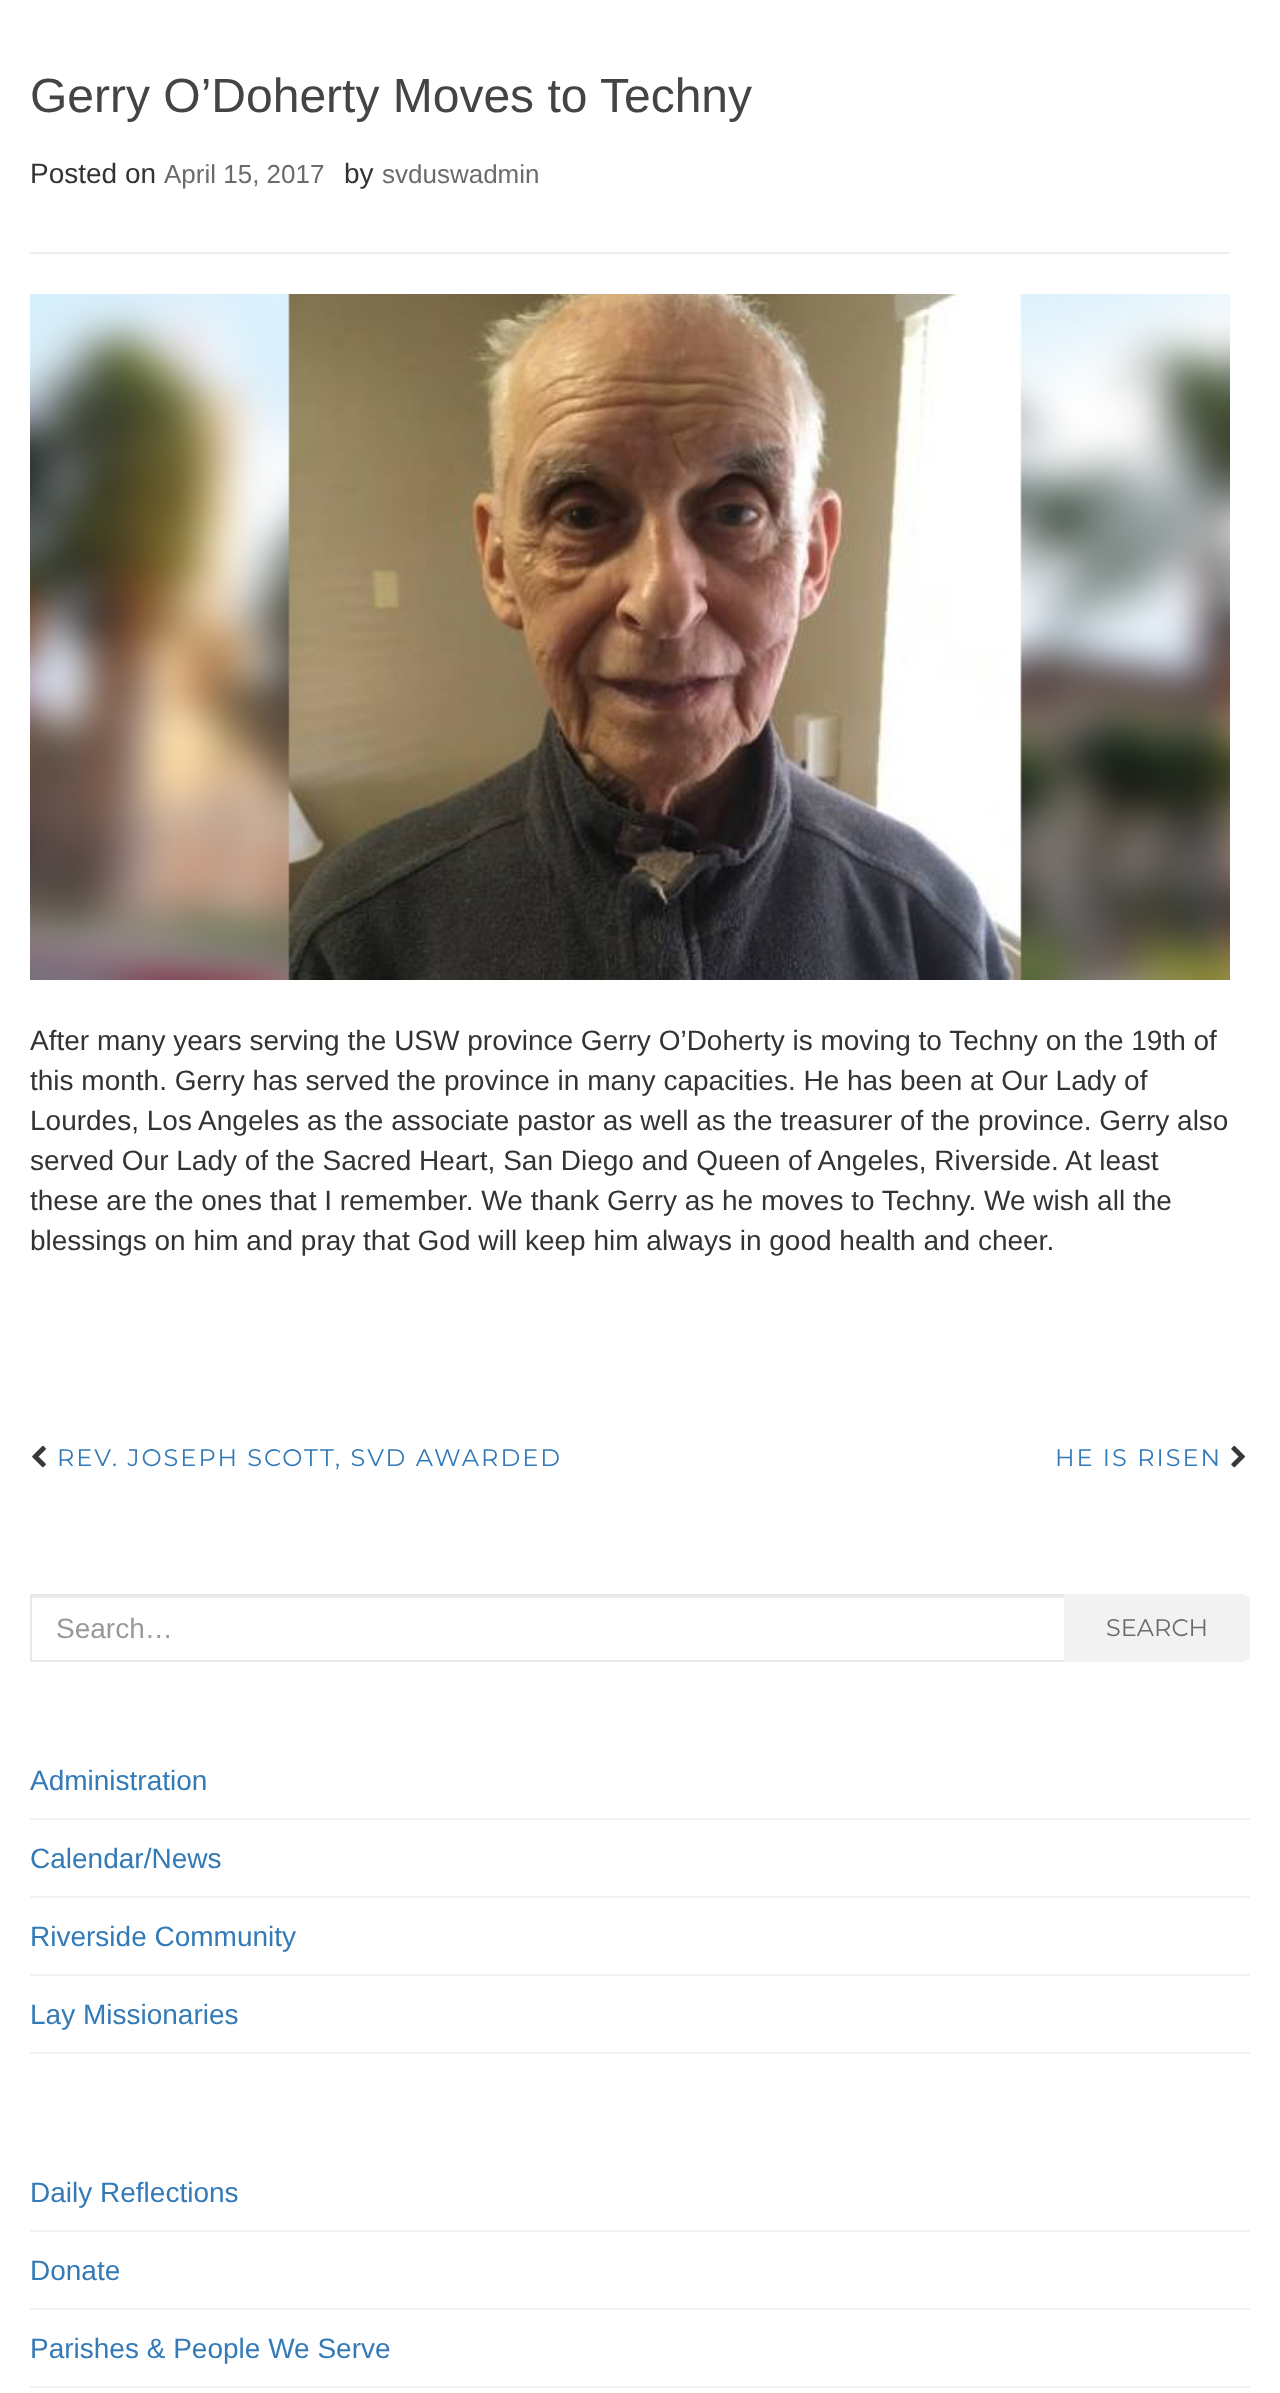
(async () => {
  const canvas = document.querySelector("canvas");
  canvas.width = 1280;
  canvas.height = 2393;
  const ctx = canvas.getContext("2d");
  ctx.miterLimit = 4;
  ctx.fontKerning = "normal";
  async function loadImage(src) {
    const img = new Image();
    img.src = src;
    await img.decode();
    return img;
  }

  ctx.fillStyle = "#ffffff";
  ctx.fillRect(0, 0, 1280, 2393);
  ctx.fillStyle = "#eeeeee";
  ctx.fillRect(30, 252, 1200, 2);
  ctx.drawImage(await loadImage("img/1.png"), 30, 294, 1200, 686);
  ctx.drawImage(await loadImage("img/2.png"), 32, 1445, 14, 23);
  ctx.drawImage(await loadImage("img/3.png"), 1231, 1445, 14, 23);
  ctx.fillStyle = "#ececec";
  ctx.fillRect(32, 1596, 1032, 2);
  ctx.strokeStyle = "#e8e8e8";
  ctx.lineWidth = 2;
  ctx.strokeRect(31, 1595, 1034, 66);
  ctx.fillStyle = "#f2f2f2";
  ctx.beginPath();
  ctx.roundRect(1064, 1594, 186, 68, [0, 8, 8, 0]);
  ctx.fill();
  for (const [x, y, w, h, color] of [
    [30, 1818, 1220, 2, "#f2f2f2"],
    [30, 1896, 1220, 2, "#f2f2f2"],
    [30, 1974, 1220, 2, "#f2f2f2"],
    [30, 2052, 1220, 2, "#f2f2f2"],
    [30, 2230, 1220, 2, "#f2f2f2"],
    [30, 2308, 1220, 2, "#f2f2f2"],
    [30, 2386, 1220, 2, "#f2f2f2"],
  ]) {
    ctx.fillStyle = color;
    ctx.fillRect(x, y, w, h);
  }
  ctx.font = "48px Liberation Sans";
  ctx.fillStyle = "#444444";
  ctx.fillText("Gerry O’Doherty Moves to Techny", 30, 112);
  ctx.font = "28px Liberation Sans";
  ctx.fillStyle = "#333333";
  ctx.fillText("Posted on", 30, 183);
  ctx.font = "26px Liberation Sans";
  ctx.fillStyle = "#6b6b6b";
  ctx.fillText("April 15, 2017", 164, 183);
  ctx.font = "28px Liberation Sans";
  ctx.fillStyle = "#333333";
  ctx.fillText("by", 344, 183);
  ctx.font = "26px Liberation Sans";
  ctx.fillStyle = "#6b6b6b";
  ctx.fillText("svduswadmin", 382, 183);
  ctx.font = "28px Liberation Sans";
  ctx.fillStyle = "#333333";
  for (const [text, x, y] of [
    ["After many years serving the USW province Gerry O’Doherty is moving to Techny on the 19th of", 30, 1050],
    ["this month. Gerry has served the province in many capacities. He has been at Our Lady of", 30, 1090],
    ["Lourdes, Los Angeles as the associate pastor as well as the treasurer of the province. Gerry also", 30, 1130],
    ["served Our Lady of the Sacred Heart, San Diego and Queen of Angeles, Riverside. At least", 30, 1170],
    ["these are the ones that I remember. We thank Gerry as he moves to Techny. We wish all the", 30, 1210],
    ["blessings on him and pray that God will keep him always in good health and cheer.", 30, 1250],
  ]) {
    ctx.fillText(text, x, y);
  }
  ctx.letterSpacing = "2px";
  ctx.font = "24px Montserrat";
  ctx.fillStyle = "#337ab7";
  ctx.fillText("REV. JOSEPH SCOTT, SVD AWARDED", 57, 1466);
  ctx.fillText("HE IS RISEN", 1055, 1466);
  ctx.letterSpacing = "0px";
  ctx.font = "28px Liberation Sans";
  ctx.fillStyle = "#999999";
  ctx.fillText("Search…", 56, 1638);
  ctx.font = "24px Montserrat";
  ctx.fillStyle = "#6b6b6b";
  ctx.fillText("SEARCH", 1106, 1636);
  ctx.font = "28px Liberation Sans";
  ctx.fillStyle = "#337ab7";
  for (const [text, x, y] of [
    ["Administration", 30, 1790],
    ["Calendar/News", 30, 1868],
    ["Riverside Community", 30, 1946],
    ["Lay Missionaries", 30, 2024],
    ["Daily Reflections", 30, 2202],
    ["Donate", 30, 2280],
    ["Parishes & People We Serve", 30, 2358],
  ]) {
    ctx.fillText(text, x, y);
  }
})();
